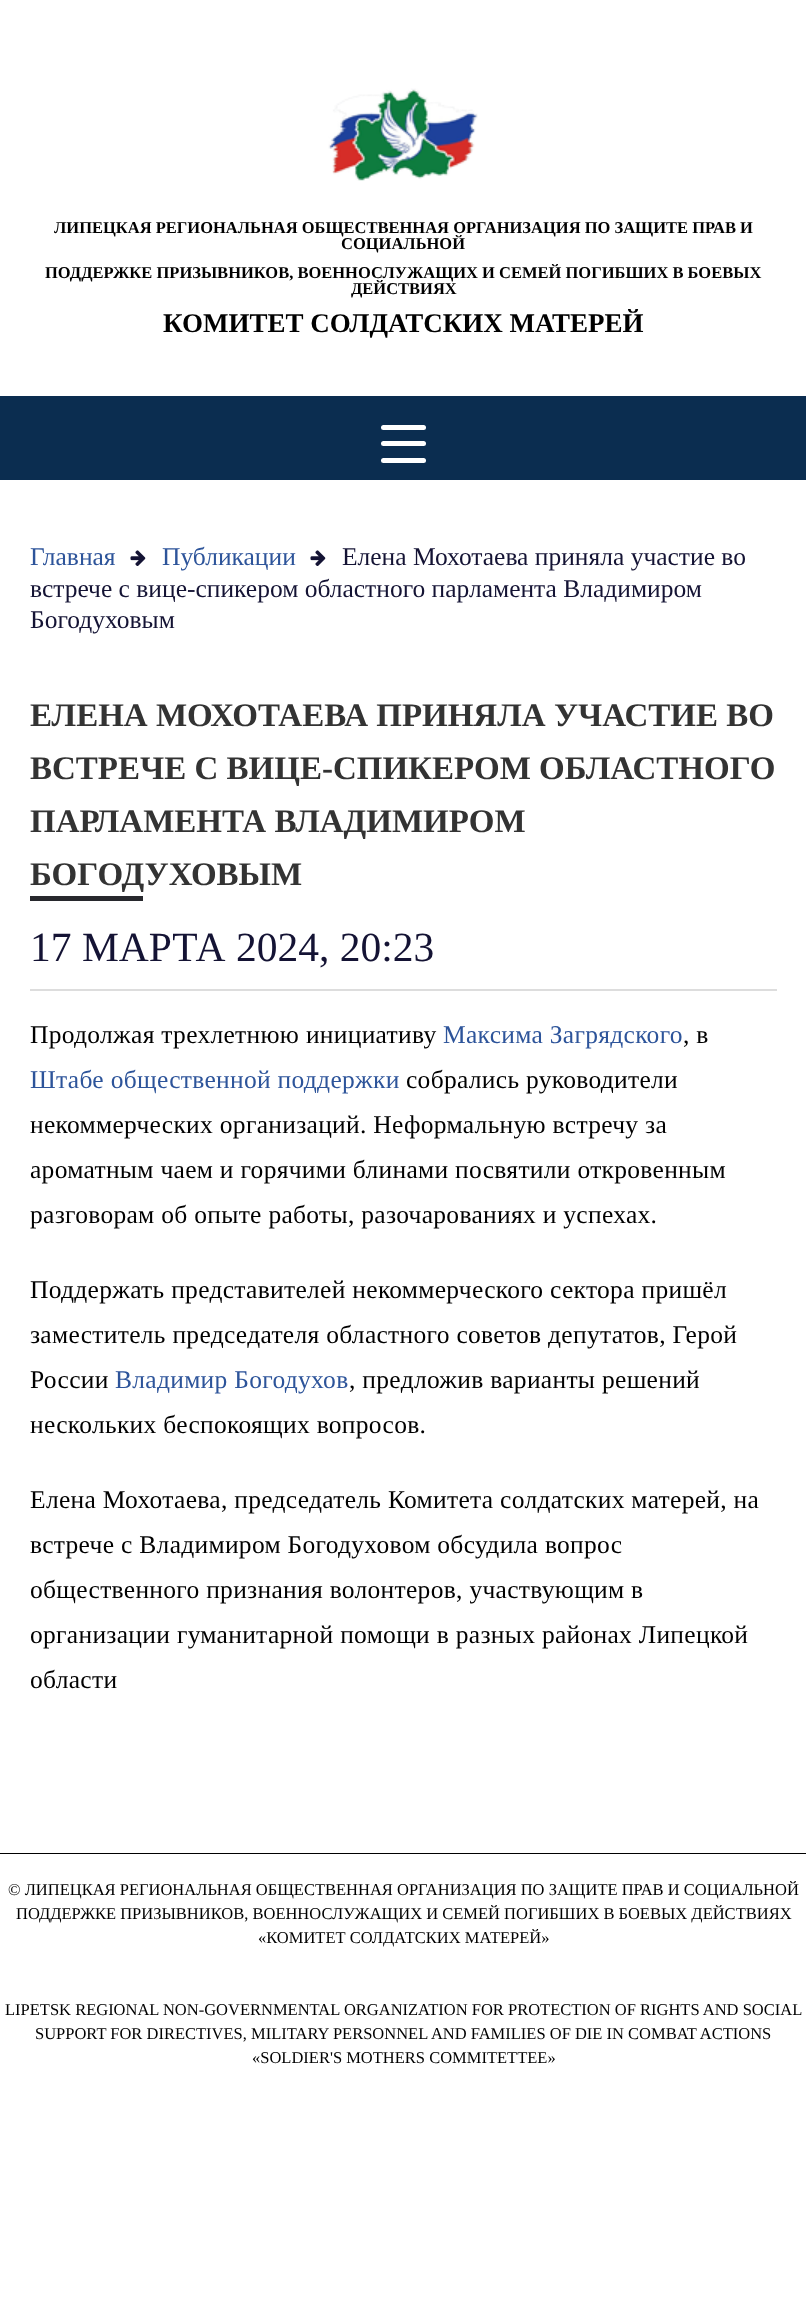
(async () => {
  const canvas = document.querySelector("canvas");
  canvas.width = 806;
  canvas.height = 2304;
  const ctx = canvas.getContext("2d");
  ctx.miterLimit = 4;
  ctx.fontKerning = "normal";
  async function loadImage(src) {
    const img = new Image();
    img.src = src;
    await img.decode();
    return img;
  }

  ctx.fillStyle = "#ffffff";
  ctx.fillRect(0, 0, 806, 2304);
  ctx.drawImage(await loadImage("img/1.png"), 328, 88, 150, 93);
  ctx.fillStyle = "#0b2d50";
  ctx.fillRect(0, 396, 806, 84);
  ctx.fillStyle = "#ffffff";
  ctx.beginPath();
  ctx.roundRect(381, 441, 45, 5, 2.5);
  ctx.fill();
  ctx.beginPath();
  ctx.roundRect(381, 425, 45, 5, 2.5);
  ctx.fill();
  ctx.beginPath();
  ctx.roundRect(381, 458, 45, 5, 2.5);
  ctx.fill();
  ctx.drawImage(await loadImage("img/2.png"), 130, 550, 16, 16);
  ctx.drawImage(await loadImage("img/2.png"), 310, 550, 16, 16);
  for (const [x, y, w, h, color] of [
    [30, 896, 113, 5, "#27282d"],
    [30, 989, 747, 2, "#dddddd"],
    [0, 1853, 806, 1, "#000000"],
  ]) {
    ctx.fillStyle = color;
    ctx.fillRect(x, y, w, h);
  }
  ctx.font = "bold 16.5px Liberation Serif";
  for (const [text, x, y] of [
    ["ЛИПЕЦКАЯ РЕГИОНАЛЬНАЯ ОБЩЕСТВЕННАЯ ОРГАНИЗАЦИЯ ПО ЗАЩИТЕ ПРАВ И", 54, 233],
    ["СОЦИАЛЬНОЙ", 341, 249],
    ["ПОДДЕРЖКЕ ПРИЗЫВНИКОВ, ВОЕННОСЛУЖАЩИХ И СЕМЕЙ ПОГИБШИХ В БОЕВЫХ", 45, 278],
    ["ДЕЙСТВИЯХ", 351, 294],
  ]) {
    ctx.fillText(text, x, y);
  }
  ctx.font = "bold 27px Liberation Serif";
  ctx.fillText("КОМИТЕТ СОЛДАТСКИХ МАТЕРЕЙ", 163, 332);
  ctx.font = "25.5px Liberation Serif";
  ctx.fillStyle = "#2d549a";
  ctx.fillText("Главная", 30, 565);
  ctx.fillText("Публикации", 162, 565);
  ctx.fillStyle = "#141334";
  for (const [text, x, y] of [
    ["Елена Мохотаева приняла участие во", 342, 565],
    ["встрече с вице-спикером областного парламента Владимиром", 30, 597],
    ["Богодуховым", 30, 628],
  ]) {
    ctx.fillText(text, x, y);
  }
  ctx.font = "bold 33px Liberation Serif";
  ctx.fillStyle = "#333333";
  for (const [text, x, y] of [
    ["ЕЛЕНА МОХОТАЕВА ПРИНЯЛА УЧАСТИЕ ВО", 30, 726],
    ["ВСТРЕЧЕ С ВИЦЕ-СПИКЕРОМ ОБЛАСТНОГО", 30, 779],
    ["ПАРЛАМЕНТА ВЛАДИМИРОМ", 30, 832],
    ["БОГОДУХОВЫМ", 30, 885],
  ]) {
    ctx.fillText(text, x, y);
  }
  ctx.font = "41.5px Liberation Serif";
  ctx.fillStyle = "#141334";
  ctx.fillText("17 МАРТА 2024, 20:23", 30, 961);
  ctx.letterSpacing = "0.3px";
  ctx.font = "25.5px Liberation Serif";
  ctx.fillStyle = "#000000";
  ctx.fillText("Продолжая трехлетнюю инициативу", 30, 1043);
  ctx.fillStyle = "#2d549a";
  ctx.fillText("Максима Загрядского", 443, 1043);
  ctx.fillStyle = "#000000";
  ctx.fillText(", в", 683, 1043);
  ctx.fillStyle = "#2d549a";
  ctx.fillText("Штабе общественной поддержки", 30, 1088);
  ctx.fillStyle = "#000000";
  for (const [text, x, y] of [
    ["собрались руководители", 406, 1088],
    ["некоммерческих организаций. Неформальную встречу за", 30, 1133],
    ["ароматным чаем и горячими блинами посвятили откровенным", 30, 1178],
    ["разговорам об опыте работы, разочарованиях и успехах.", 30, 1223],
    ["Поддержать представителей некоммерческого сектора пришёл", 30, 1298],
    ["заместитель председателя областного советов депутатов, Герой", 30, 1343],
    ["России", 30, 1388],
  ]) {
    ctx.fillText(text, x, y);
  }
  ctx.fillStyle = "#2d549a";
  ctx.fillText("Владимир Богодухов", 115, 1388);
  ctx.fillStyle = "#000000";
  for (const [text, x, y] of [
    [", предложив варианты решений", 349, 1388],
    ["нескольких беспокоящих вопросов.", 30, 1433],
    ["Елена Мохотаева, председатель Комитета солдатских матерей, на", 30, 1508],
    ["встрече с Владимиром Богодуховом обсудила вопрос", 30, 1553],
    ["общественного признания волонтеров, участвующим в", 30, 1598],
    ["организации гуманитарной помощи в разных районах Липецкой", 30, 1643],
    ["области", 30, 1688],
  ]) {
    ctx.fillText(text, x, y);
  }
  ctx.letterSpacing = "0px";
  ctx.font = "16.5px Liberation Serif";
  for (const [text, x, y] of [
    ["© ЛИПЕЦКАЯ РЕГИОНАЛЬНАЯ ОБЩЕСТВЕННАЯ ОРГАНИЗАЦИЯ ПО ЗАЩИТЕ ПРАВ И СОЦИАЛЬНОЙ", 8, 1895],
    ["ПОДДЕРЖКЕ ПРИЗЫВНИКОВ, ВОЕННОСЛУЖАЩИХ И СЕМЕЙ ПОГИБШИХ В БОЕВЫХ ДЕЙСТВИЯХ", 16, 1919],
    ["«КОМИТЕТ СОЛДАТСКИХ МАТЕРЕЙ»", 258, 1943],
    ["LIPETSK REGIONAL NON-GOVERNMENTAL ORGANIZATION FOR PROTECTION OF RIGHTS AND SOCIAL", 5, 2015],
    ["SUPPORT FOR DIRECTIVES, MILITARY PERSONNEL AND FAMILIES OF DIE IN COMBAT ACTIONS", 35, 2039],
    ["«SOLDIER'S MOTHERS COMMITETTEE»", 252, 2063],
  ]) {
    ctx.fillText(text, x, y);
  }
})();
